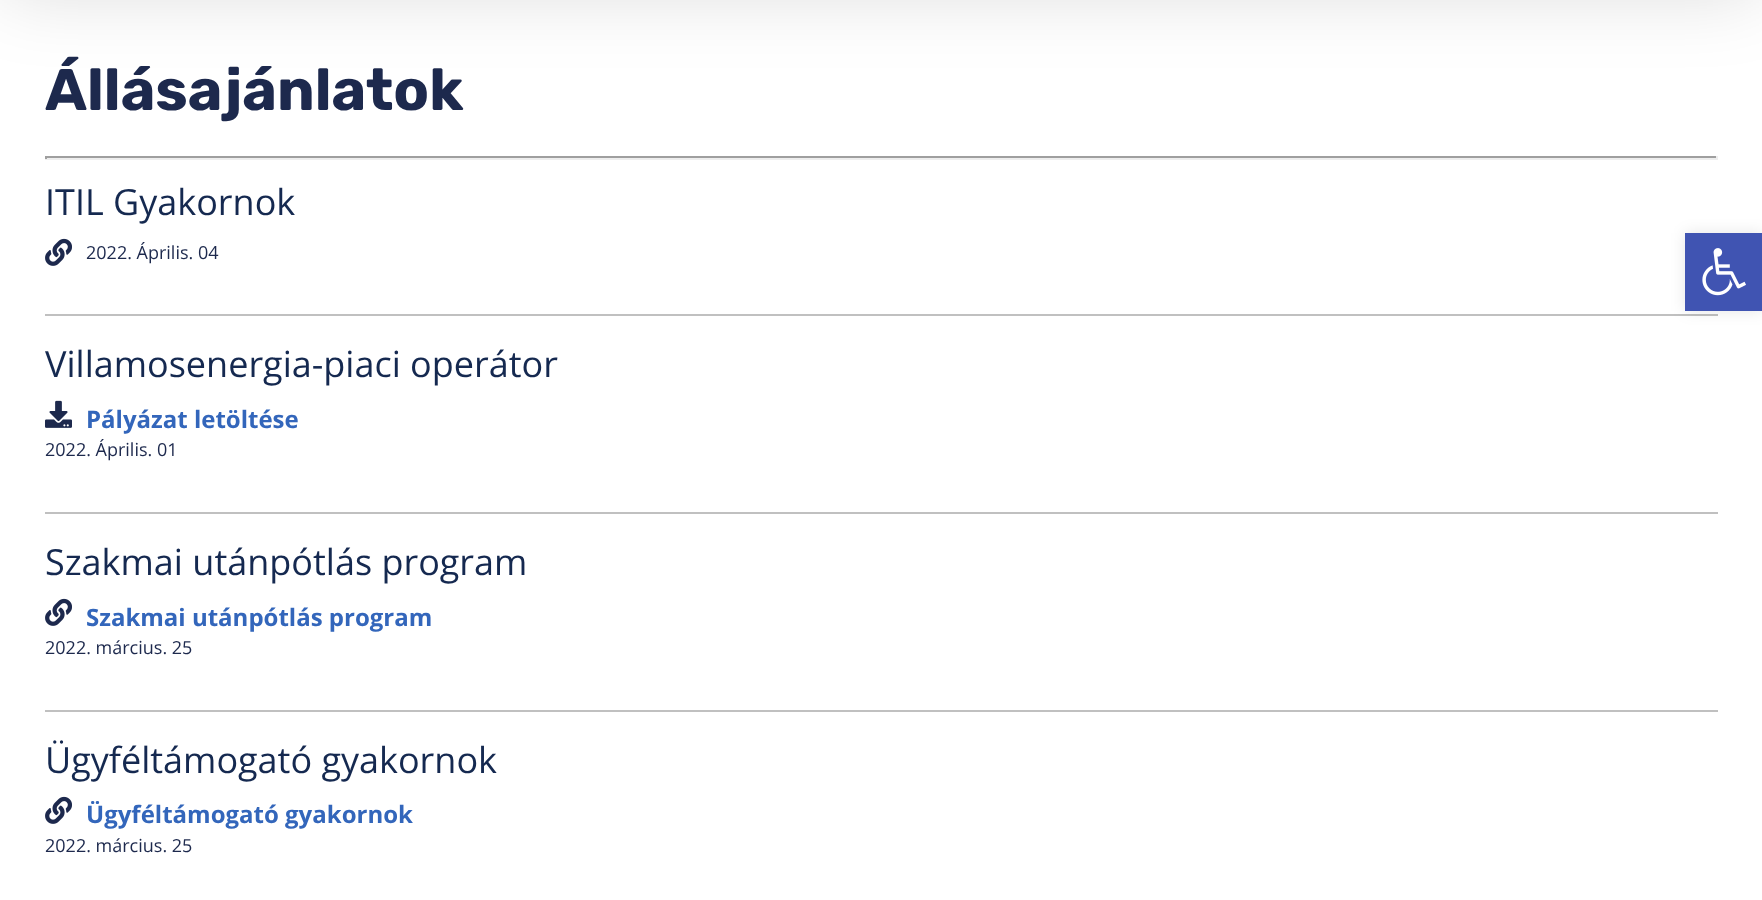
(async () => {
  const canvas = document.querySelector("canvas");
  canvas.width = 1762;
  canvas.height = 900;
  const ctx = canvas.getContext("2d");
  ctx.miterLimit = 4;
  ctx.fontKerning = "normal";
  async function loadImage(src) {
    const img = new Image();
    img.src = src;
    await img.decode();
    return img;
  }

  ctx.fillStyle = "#ffffff";
  ctx.fillRect(0, 0, 1762, 900);
  ctx.fillStyle = "rgba(0, 0, 0, 0.14)";
  ctx.filter = "blur(37.5px)";
  ctx.beginPath();
  ctx.rect(3, -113, 1757, 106);
  ctx.fill();
  ctx.filter = "none";
  for (const [x, y, w, h, color] of [
    [45, 156, 1673, 2, "#9f9f9f"],
    [1716, 156, 2, 3, "#eeeeee"],
    [45, 158, 1673, 2, "#eeeeee"],
    [45, 156, 2, 3, "#9f9f9f"],
    [45, 314, 1673, 2, "#c0c0c0"],
  ]) {
    ctx.fillStyle = color;
    ctx.fillRect(x, y, w, h);
  }
  ctx.drawImage(await loadImage("img/1.png"), 45, 238, 27, 28);
  ctx.fillRect(45, 512, 1673, 2);
  ctx.drawImage(await loadImage("img/2.png"), 45, 400, 27, 28);
  ctx.fillRect(45, 710, 1673, 2);
  ctx.drawImage(await loadImage("img/1.png"), 45, 598, 27, 28);
  ctx.drawImage(await loadImage("img/1.png"), 45, 796, 27, 28);
  ctx.fillStyle = "rgba(0, 0, 0, 0.1)";
  ctx.filter = "blur(7.5px)";
  ctx.beginPath();
  ctx.rect(1685, 233, 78, 78);
  ctx.fill();
  ctx.filter = "none";
  ctx.fillStyle = "#4054b2";
  ctx.fillRect(1685, 233, 77, 78);
  ctx.drawImage(await loadImage("img/3.png"), 1702, 248, 44, 48);
  ctx.font = "300 58.75px Rubik";
  ctx.fillStyle = "#1d294d";
  ctx.fillText("Állásajánlatok", 45, 110);
  ctx.font = "36px Open Sans";
  ctx.fillStyle = "#152950";
  ctx.fillText("ITIL Gyakornok", 45, 215);
  ctx.font = "18px Open Sans";
  ctx.fillStyle = "#1d294d";
  ctx.fillText("2022. Április. 04", 86, 259);
  ctx.font = "36px Open Sans";
  ctx.fillStyle = "#152950";
  ctx.fillText("Villamosenergia-piaci operátor", 45, 377);
  ctx.font = "bold 24px Open Sans";
  ctx.fillStyle = "#3366bb";
  ctx.fillText("Pályázat letöltése", 86, 428);
  ctx.font = "18px Open Sans";
  ctx.fillStyle = "#1d294d";
  ctx.fillText("2022. Április. 01", 45, 456);
  ctx.font = "36px Open Sans";
  ctx.fillStyle = "#152950";
  ctx.fillText("Szakmai utánpótlás program", 45, 575);
  ctx.font = "bold 24px Open Sans";
  ctx.fillStyle = "#3366bb";
  ctx.fillText("Szakmai utánpótlás program", 86, 626);
  ctx.font = "18px Open Sans";
  ctx.fillStyle = "#1d294d";
  ctx.fillText("2022. március. 25", 45, 654);
  ctx.font = "36px Open Sans";
  ctx.fillStyle = "#152950";
  ctx.fillText("Ügyféltámogató gyakornok", 45, 773);
  ctx.font = "bold 24px Open Sans";
  ctx.fillStyle = "#3366bb";
  ctx.fillText("Ügyféltámogató gyakornok", 86, 823);
  ctx.font = "18px Open Sans";
  ctx.fillStyle = "#1d294d";
  ctx.fillText("2022. március. 25", 45, 852);
})();
